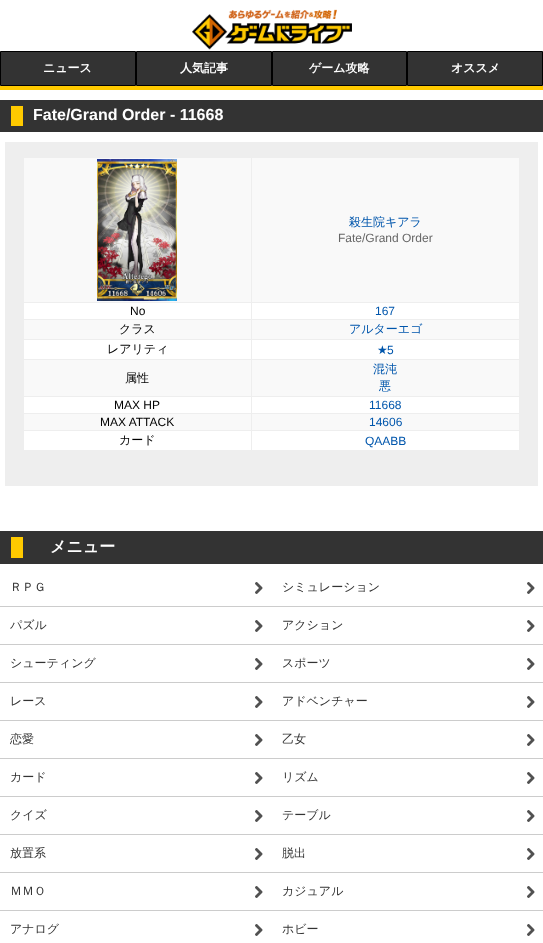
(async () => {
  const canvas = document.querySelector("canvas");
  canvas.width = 543;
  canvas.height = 943;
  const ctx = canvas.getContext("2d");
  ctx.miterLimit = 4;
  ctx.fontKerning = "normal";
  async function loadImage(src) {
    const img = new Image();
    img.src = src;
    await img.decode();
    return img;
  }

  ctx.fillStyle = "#ffffff";
  ctx.fillRect(0, 0, 543, 943);
  ctx.drawImage(await loadImage("img/1.png"), 192, 9, 160, 41);
  ctx.fillStyle = "#ffca00";
  ctx.fillRect(0, 86, 543, 4);
  ctx.fillStyle = "#333333";
  ctx.beginPath();
  ctx.rect(0.5, 51.5, 135, 34);
  ctx.fill();
  ctx.strokeStyle = "#000000";
  ctx.stroke();
  ctx.beginPath();
  ctx.rect(136.5, 51.5, 135, 34);
  ctx.fill();
  ctx.stroke();
  ctx.beginPath();
  ctx.rect(272.5, 51.5, 134, 34);
  ctx.fill();
  ctx.stroke();
  ctx.beginPath();
  ctx.rect(407.5, 51.5, 135, 34);
  ctx.fill();
  ctx.stroke();
  for (const [x, y, w, h, color] of [
    [0, 100, 543, 32, "#333333"],
    [11, 106, 12, 20, "#ffca00"],
    [5, 142, 533, 344, "#eeeeee"],
    [24, 158, 227, 144, "#f9f9f9"],
  ]) {
    ctx.fillStyle = color;
    ctx.fillRect(x, y, w, h);
  }
  ctx.drawImage(await loadImage("img/2.png"), 97, 159, 80, 142);
  for (const [x, y, w, h, color] of [
    [252, 158, 267, 144, "#f9f9f9"],
    [24, 303, 227, 16, "#ffffff"],
    [252, 303, 267, 16, "#ffffff"],
    [24, 320, 227, 19, "#f9f9f9"],
    [252, 320, 267, 19, "#f9f9f9"],
    [24, 340, 227, 19, "#ffffff"],
    [252, 340, 267, 19, "#ffffff"],
    [24, 360, 227, 36, "#f9f9f9"],
    [252, 360, 267, 36, "#f9f9f9"],
    [24, 397, 227, 16, "#ffffff"],
    [252, 397, 267, 16, "#ffffff"],
    [24, 414, 227, 16, "#f9f9f9"],
    [252, 414, 267, 16, "#f9f9f9"],
    [24, 431, 227, 19, "#ffffff"],
    [252, 431, 267, 19, "#ffffff"],
    [0, 531, 543, 33, "#333333"],
    [11, 537, 12, 21, "#ffca00"],
    [0, 606, 543, 1, "#cccccc"],
  ]) {
    ctx.fillStyle = color;
    ctx.fillRect(x, y, w, h);
  }
  ctx.drawImage(await loadImage("img/3.png"), 255, 582, 8, 12);
  ctx.drawImage(await loadImage("img/3.png"), 527, 582, 8, 12);
  ctx.fillRect(0, 644, 543, 1);
  ctx.drawImage(await loadImage("img/3.png"), 255, 620, 8, 12);
  ctx.drawImage(await loadImage("img/3.png"), 527, 620, 8, 12);
  ctx.fillRect(0, 682, 543, 1);
  ctx.drawImage(await loadImage("img/3.png"), 255, 658, 8, 12);
  ctx.drawImage(await loadImage("img/3.png"), 527, 658, 8, 12);
  ctx.fillRect(0, 720, 543, 1);
  ctx.drawImage(await loadImage("img/3.png"), 255, 696, 8, 12);
  ctx.drawImage(await loadImage("img/3.png"), 527, 696, 8, 12);
  ctx.fillRect(0, 758, 543, 1);
  ctx.drawImage(await loadImage("img/3.png"), 255, 734, 8, 12);
  ctx.drawImage(await loadImage("img/3.png"), 527, 734, 8, 12);
  ctx.fillRect(0, 796, 543, 1);
  ctx.drawImage(await loadImage("img/3.png"), 255, 772, 8, 12);
  ctx.drawImage(await loadImage("img/3.png"), 527, 772, 8, 12);
  ctx.fillRect(0, 834, 543, 1);
  ctx.drawImage(await loadImage("img/3.png"), 255, 810, 8, 12);
  ctx.drawImage(await loadImage("img/3.png"), 527, 810, 8, 12);
  ctx.fillRect(0, 872, 543, 1);
  ctx.drawImage(await loadImage("img/3.png"), 255, 848, 8, 12);
  ctx.drawImage(await loadImage("img/3.png"), 527, 848, 8, 12);
  ctx.fillRect(0, 910, 543, 1);
  ctx.drawImage(await loadImage("img/3.png"), 255, 886, 8, 12);
  ctx.drawImage(await loadImage("img/3.png"), 527, 886, 8, 12);
  ctx.drawImage(await loadImage("img/3.png"), 255, 924, 8, 12);
  ctx.drawImage(await loadImage("img/3.png"), 527, 924, 8, 12);
  ctx.font = "bold 12px WenQuanYi Zen Hei";
  ctx.fillStyle = "#ffffff";
  for (const [text, x, y] of [
    ["ニュース", 43, 72],
    ["人気記事", 180, 72],
    ["ゲーム攻略", 309, 72],
    ["オススメ", 451, 72],
  ]) {
    ctx.fillText(text, x, y);
  }
  ctx.font = "bold 16px Liberation Sans";
  ctx.fillText("Fate/Grand Order - 11668", 33, 120);
  ctx.font = "500 12px WenQuanYi Zen Hei";
  ctx.fillStyle = "#0056ac";
  ctx.fillText("殺生院キアラ", 349, 226);
  ctx.font = "12px Liberation Sans";
  ctx.fillStyle = "#666666";
  ctx.fillText("Fate/Grand Order", 338, 242);
  ctx.fillStyle = "#000000";
  ctx.fillText("No", 130, 315);
  ctx.fillStyle = "#0056ac";
  ctx.fillText("167", 375, 315);
  ctx.font = "500 12px WenQuanYi Zen Hei";
  ctx.fillStyle = "#000000";
  ctx.fillText("クラス", 119, 333);
  ctx.fillStyle = "#0056ac";
  ctx.fillText("アルターエゴ", 349, 333);
  ctx.fillStyle = "#000000";
  ctx.fillText("レアリティ", 107, 353);
  ctx.font = "12px DejaVu Sans";
  ctx.fillStyle = "#0056ac";
  ctx.fillText("★", 377, 354);
  ctx.font = "12px Liberation Sans";
  ctx.fillText("5", 387, 354);
  ctx.font = "500 12px WenQuanYi Zen Hei";
  ctx.fillStyle = "#000000";
  ctx.fillText("属性", 125, 382);
  ctx.fillStyle = "#0056ac";
  ctx.fillText("混沌", 373, 373);
  ctx.fillText("悪", 379, 390);
  ctx.font = "12px Liberation Sans";
  ctx.fillStyle = "#000000";
  ctx.fillText("MAX HP", 114, 409);
  ctx.fillStyle = "#0056ac";
  ctx.fillText("11668", 369, 409);
  ctx.fillStyle = "#000000";
  ctx.fillText("MAX ATTACK", 100, 426);
  ctx.fillStyle = "#0056ac";
  ctx.fillText("14606", 369, 426);
  ctx.font = "500 12px WenQuanYi Zen Hei";
  ctx.fillStyle = "#000000";
  ctx.fillText("カード", 119, 444);
  ctx.font = "12px Liberation Sans";
  ctx.fillStyle = "#0056ac";
  ctx.fillText("QAABB", 365, 445);
  ctx.font = "bold 16px WenQuanYi Zen Hei";
  ctx.fillStyle = "#ffffff";
  ctx.fillText("メニュー", 50, 552);
  ctx.font = "500 12px WenQuanYi Zen Hei";
  ctx.fillStyle = "#333333";
  for (const [text, x, y] of [
    ["ＲＰＧ", 10, 591],
    ["シミュレーション", 282, 591],
    ["パズル", 10, 629],
    ["アクション", 282, 629],
    ["シューティング", 10, 667],
    ["スポーツ", 282, 667],
    ["レース", 10, 705],
    ["アドベンチャー", 282, 705],
    ["恋愛", 10, 743],
    ["乙女", 282, 743],
    ["カード", 10, 781],
    ["リズム", 282, 781],
    ["クイズ", 10, 819],
    ["テーブル", 282, 819],
    ["放置系", 10, 857],
    ["脱出", 282, 857],
    ["ＭＭＯ", 10, 895],
    ["カジュアル", 282, 895],
    ["アナログ", 10, 933],
    ["ホビー", 282, 933],
  ]) {
    ctx.fillText(text, x, y);
  }
})();
